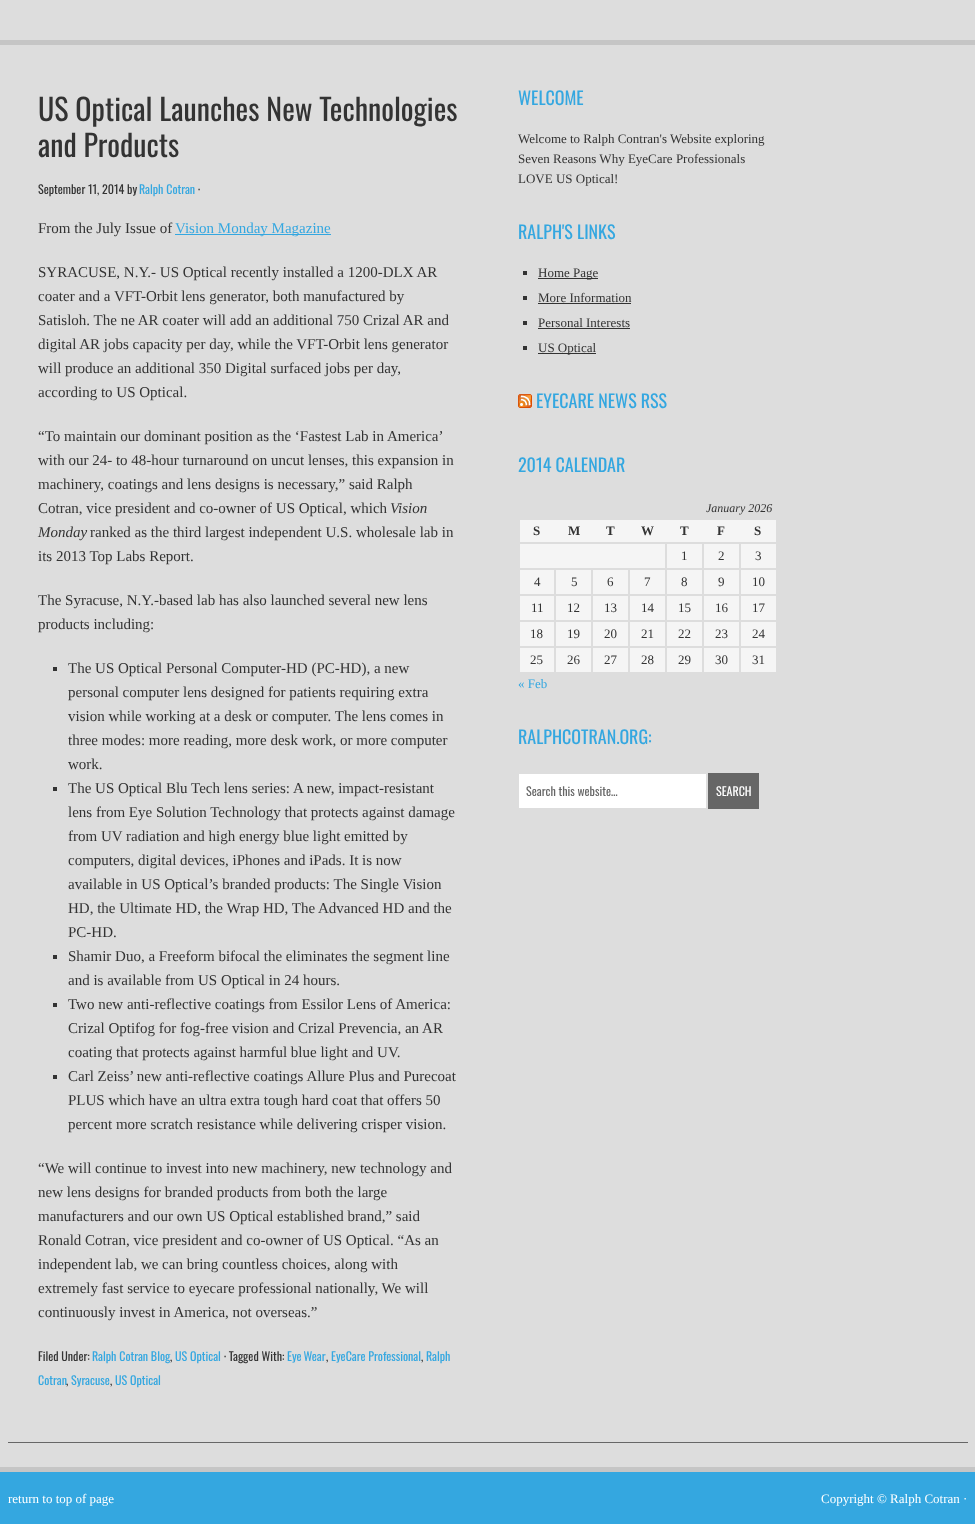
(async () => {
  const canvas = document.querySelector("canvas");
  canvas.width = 975;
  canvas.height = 1524;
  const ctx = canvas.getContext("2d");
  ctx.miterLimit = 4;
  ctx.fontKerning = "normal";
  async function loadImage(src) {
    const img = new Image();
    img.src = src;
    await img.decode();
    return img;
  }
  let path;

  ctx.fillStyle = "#dddddd";
  ctx.fillRect(0, 0, 975, 1524);
  ctx.fillStyle = "#c5c5c5";
  ctx.fillRect(0, 40, 975, 5);
  ctx.save();
  path = new Path2D("M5 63H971V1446H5ZM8 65H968V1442H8Z");
  ctx.clip(path, "evenodd");
  ctx.fillStyle = "#666666";
  ctx.filter = "blur(0.5px)";
  ctx.beginPath();
  ctx.rect(8, 66, 960, 1377);
  ctx.fill();
  ctx.filter = "none";
  ctx.restore();
  for (const [x, y, w, h, color] of [
    [175, 234, 156, 1, "#34a7e0"],
    [53, 667, 4, 4, "#333333"],
    [53, 787, 4, 4, "#333333"],
    [53, 955, 4, 4, "#333333"],
    [53, 1003, 4, 4, "#333333"],
    [53, 1075, 4, 4, "#333333"],
    [523, 271, 4, 4, "#333333"],
    [538, 278, 60, 1, "#333333"],
    [523, 296, 4, 4, "#333333"],
    [538, 303, 93, 1, "#333333"],
    [523, 321, 4, 4, "#333333"],
    [538, 328, 92, 1, "#333333"],
    [523, 346, 4, 4, "#333333"],
    [538, 353, 58, 1, "#333333"],
  ]) {
    ctx.fillStyle = color;
    ctx.fillRect(x, y, w, h);
  }
  ctx.drawImage(await loadImage("img/1.png"), 518, 394, 14, 14);
  for (const [x, y, w, h, color] of [
    [520, 520, 256, 22, "#f5f5f5"],
    [520, 544, 145, 24, "#f5f5f5"],
    [667, 544, 35, 24, "#f5f5f5"],
    [704, 544, 35, 24, "#f5f5f5"],
    [741, 544, 35, 24, "#f5f5f5"],
    [520, 570, 34, 24, "#f5f5f5"],
    [556, 570, 35, 24, "#f5f5f5"],
    [593, 570, 35, 24, "#f5f5f5"],
    [630, 570, 35, 24, "#f5f5f5"],
    [667, 570, 35, 24, "#f5f5f5"],
    [704, 570, 35, 24, "#f5f5f5"],
    [741, 570, 35, 24, "#f5f5f5"],
    [520, 596, 34, 24, "#f5f5f5"],
    [556, 596, 35, 24, "#f5f5f5"],
    [593, 596, 35, 24, "#f5f5f5"],
    [630, 596, 35, 24, "#f5f5f5"],
    [667, 596, 35, 24, "#f5f5f5"],
    [704, 596, 35, 24, "#f5f5f5"],
    [741, 596, 35, 24, "#f5f5f5"],
    [520, 622, 34, 24, "#f5f5f5"],
    [556, 622, 35, 24, "#f5f5f5"],
    [593, 622, 35, 24, "#f5f5f5"],
    [630, 622, 35, 24, "#f5f5f5"],
    [667, 622, 35, 24, "#f5f5f5"],
    [704, 622, 35, 24, "#f5f5f5"],
    [741, 622, 35, 24, "#f5f5f5"],
    [520, 648, 34, 24, "#f5f5f5"],
    [556, 648, 35, 24, "#f5f5f5"],
    [593, 648, 35, 24, "#f5f5f5"],
    [630, 648, 35, 24, "#f5f5f5"],
    [667, 648, 35, 24, "#f5f5f5"],
    [704, 648, 35, 24, "#f5f5f5"],
    [741, 648, 35, 24, "#f5f5f5"],
    [519, 774, 187, 34, "#ffffff"],
    [708, 773, 51, 36, "#666666"],
    [0, 1472, 975, 52, "#34a7e0"],
    [0, 1467, 975, 5, "#c5c5c5"],
  ]) {
    ctx.fillStyle = color;
    ctx.fillRect(x, y, w, h);
  }
  ctx.font = "30px Oswald";
  ctx.fillStyle = "#333333";
  ctx.fillText("US Optical Launches New Technologies", 38, 121);
  ctx.fillText("and Products", 38, 157);
  ctx.font = "12px Oswald";
  ctx.fillText("September 11, 2014 by", 38, 194);
  ctx.fillStyle = "#34a7e0";
  ctx.fillText("Ralph Cotran", 139, 194);
  ctx.fillStyle = "#333333";
  ctx.fillText("·", 198, 194);
  ctx.font = "15px Liberation Serif";
  ctx.fillText("From the July Issue of", 38, 233);
  ctx.fillStyle = "#34a7e0";
  ctx.fillText("Vision Monday Magazine", 175, 233);
  ctx.fillStyle = "#333333";
  for (const [text, x, y] of [
    ["SYRACUSE, N.Y.- US Optical recently installed a 1200-DLX AR", 38, 277],
    ["coater and a VFT-Orbit lens generator, both manufactured by", 38, 301],
    ["Satisloh. The ne AR coater will add an additional 750 Crizal AR and", 38, 325],
    ["digital AR jobs capacity per day, while the VFT-Orbit lens generator", 38, 349],
    ["will produce an additional 350 Digital surfaced jobs per day,", 38, 373],
    ["according to US Optical.", 38, 397],
    ["“To maintain our dominant position as the ‘Fastest Lab in America’", 38, 441],
    ["with our 24- to 48-hour turnaround on uncut lenses, this expansion in", 38, 465],
    ["machinery, coatings and lens designs is necessary,” said Ralph", 38, 489],
    ["Cotran, vice president and co-owner of US Optical, which", 38, 513],
  ]) {
    ctx.fillText(text, x, y);
  }
  ctx.font = "italic 15px Liberation Serif";
  ctx.fillText("Vision", 390, 513);
  ctx.fillText("Monday", 38, 537);
  ctx.font = "15px Liberation Serif";
  ctx.fillText("ranked as the third largest independent U.S. wholesale lab in", 90, 537);
  ctx.fillText("its 2013 Top Labs Report.", 38, 561);
  ctx.save();
  ctx.beginPath();
  ctx.rect(38, 216, 420, 1128);
  ctx.clip();
  ctx.fillText("The Syracuse, N.Y.-based lab has also launched several new lens", 38, 605);
  ctx.restore();
  for (const [text, x, y] of [
    ["products including:", 38, 629],
    ["The US Optical Personal Computer-HD (PC-HD), a new", 68, 673],
    ["personal computer lens designed for patients requiring extra", 68, 697],
    ["vision while working at a desk or computer. The lens comes in", 68, 721],
    ["three modes: more reading, more desk work, or more computer", 68, 745],
    ["work.", 68, 769],
    ["The US Optical Blu Tech lens series: A new, impact-resistant", 68, 793],
    ["lens from Eye Solution Technology that protects against damage", 68, 817],
    ["from UV radiation and high energy blue light emitted by", 68, 841],
    ["computers, digital devices, iPhones and iPads. It is now", 68, 865],
    ["available in US Optical’s branded products: The Single Vision", 68, 889],
    ["HD, the Ultimate HD, the Wrap HD, The Advanced HD and the", 68, 913],
    ["PC-HD.", 68, 937],
    ["Shamir Duo, a Freeform bifocal the eliminates the segment line", 68, 961],
    ["and is available from US Optical in 24 hours.", 68, 985],
    ["Two new anti-reflective coatings from Essilor Lens of America:", 68, 1009],
    ["Crizal Optifog for fog-free vision and Crizal Prevencia, an AR", 68, 1033],
    ["coating that protects against harmful blue light and UV.", 68, 1057],
    ["Carl Zeiss’ new anti-reflective coatings Allure Plus and Purecoat", 68, 1081],
    ["PLUS which have an ultra extra tough hard coat that offers 50", 68, 1105],
    ["percent more scratch resistance while delivering crisper vision.", 68, 1129],
    ["“We will continue to invest into new machinery, new technology and", 38, 1173],
    ["new lens designs for branded products from both the large", 38, 1197],
    ["manufacturers and our own US Optical established brand,” said", 38, 1221],
    ["Ronald Cotran, vice president and co-owner of US Optical. “As an", 38, 1245],
    ["independent lab, we can bring countless choices, along with", 38, 1269],
    ["extremely fast service to eyecare professional nationally, We will", 38, 1293],
    ["continuously invest in America, not overseas.”", 38, 1317],
  ]) {
    ctx.fillText(text, x, y);
  }
  ctx.font = "12px Oswald";
  ctx.fillText("Filed Under:", 38, 1361);
  ctx.fillStyle = "#34a7e0";
  ctx.fillText("Ralph Cotran Blog", 92, 1361);
  ctx.fillText("US Optical", 175, 1361);
  ctx.fillStyle = "#333333";
  ctx.fillText("· Tagged With:", 224, 1361);
  ctx.wordSpacing = "-1px";
  ctx.fillStyle = "#34a7e0";
  ctx.fillText("Eye Wear", 287, 1361);
  ctx.wordSpacing = "0px";
  ctx.fillText("EyeCare Professional", 331, 1361);
  ctx.fillText("Ralph", 426, 1361);
  ctx.fillStyle = "#333333";
  for (const [text, x, y] of [
    [",", 170, 1361],
    [",", 326, 1361],
    [",", 421, 1361],
  ]) {
    ctx.fillText(text, x, y);
  }
  ctx.fillStyle = "#34a7e0";
  ctx.fillText("Cotran", 38, 1385);
  ctx.fillStyle = "#333333";
  ctx.fillText(",", 66, 1385);
  ctx.fillStyle = "#34a7e0";
  ctx.fillText("Syracuse", 71, 1385);
  ctx.fillStyle = "#333333";
  ctx.fillText(",", 110, 1385);
  ctx.fillStyle = "#34a7e0";
  ctx.fillText("US Optical", 115, 1385);
  ctx.font = "18px Oswald";
  ctx.fillText("WELCOME", 518, 105);
  ctx.font = "13px Liberation Serif";
  ctx.fillStyle = "#333333";
  for (const [text, x, y] of [
    ["Welcome to Ralph Contran's Website exploring", 518, 143],
    ["Seven Reasons Why EyeCare Professionals", 518, 163],
    ["LOVE US Optical!", 518, 183],
  ]) {
    ctx.fillText(text, x, y);
  }
  ctx.font = "18px Oswald";
  ctx.fillStyle = "#34a7e0";
  ctx.fillText("RALPH'S LINKS", 518, 239);
  ctx.font = "13px Liberation Serif";
  ctx.fillStyle = "#333333";
  for (const [text, x, y] of [
    ["Home Page", 538, 277],
    ["More Information", 538, 302],
    ["Personal Interests", 538, 327],
    ["US Optical", 538, 352],
  ]) {
    ctx.fillText(text, x, y);
  }
  ctx.font = "18px Oswald";
  ctx.fillStyle = "#34a7e0";
  ctx.fillText("EYECARE NEWS RSS", 536, 408);
  ctx.fillText("2014 CALENDAR", 518, 472);
  ctx.font = "italic 12px Liberation Serif";
  ctx.fillStyle = "#333333";
  ctx.fillText("January 2026", 706, 512);
  ctx.font = "bold 13px Liberation Serif";
  for (const [text, x, y] of [
    ["S", 533, 535],
    ["M", 568, 535],
    ["T", 606, 535],
    ["W", 641, 535],
    ["T", 680, 535],
    ["F", 717, 535],
    ["S", 754, 535],
  ]) {
    ctx.fillText(text, x, y);
  }
  ctx.font = "13px Liberation Serif";
  for (const [text, x, y] of [
    ["1", 681, 560],
    ["2", 718, 560],
    ["3", 755, 560],
    ["4", 534, 586],
    ["5", 571, 586],
    ["6", 607, 586],
    ["7", 644, 586],
    ["8", 681, 586],
    ["9", 718, 586],
    ["10", 752, 586],
    ["11", 531, 612],
    ["12", 567, 612],
    ["13", 604, 612],
    ["14", 641, 612],
    ["15", 678, 612],
    ["16", 715, 612],
    ["17", 752, 612],
    ["18", 530, 638],
    ["19", 567, 638],
    ["20", 604, 638],
    ["21", 641, 638],
    ["22", 678, 638],
    ["23", 715, 638],
    ["24", 752, 638],
    ["25", 530, 664],
    ["26", 567, 664],
    ["27", 604, 664],
    ["28", 641, 664],
    ["29", 678, 664],
    ["30", 715, 664],
    ["31", 752, 664],
  ]) {
    ctx.fillText(text, x, y);
  }
  ctx.fillStyle = "#34a7e0";
  ctx.fillText("« Feb", 518, 688);
  ctx.font = "18px Oswald";
  ctx.fillText("RALPHCOTRAN.ORG:", 518, 744);
  ctx.font = "12px Oswald";
  ctx.fillStyle = "#666666";
  ctx.fillText("Search this website…", 526, 796);
  ctx.fillStyle = "#ffffff";
  ctx.fillText("SEARCH", 716, 796);
  ctx.font = "13px Liberation Serif";
  ctx.fillText("return to top of page", 8, 1503);
  ctx.fillText("Copyright © Ralph Cotran ·", 821, 1503);
})();
